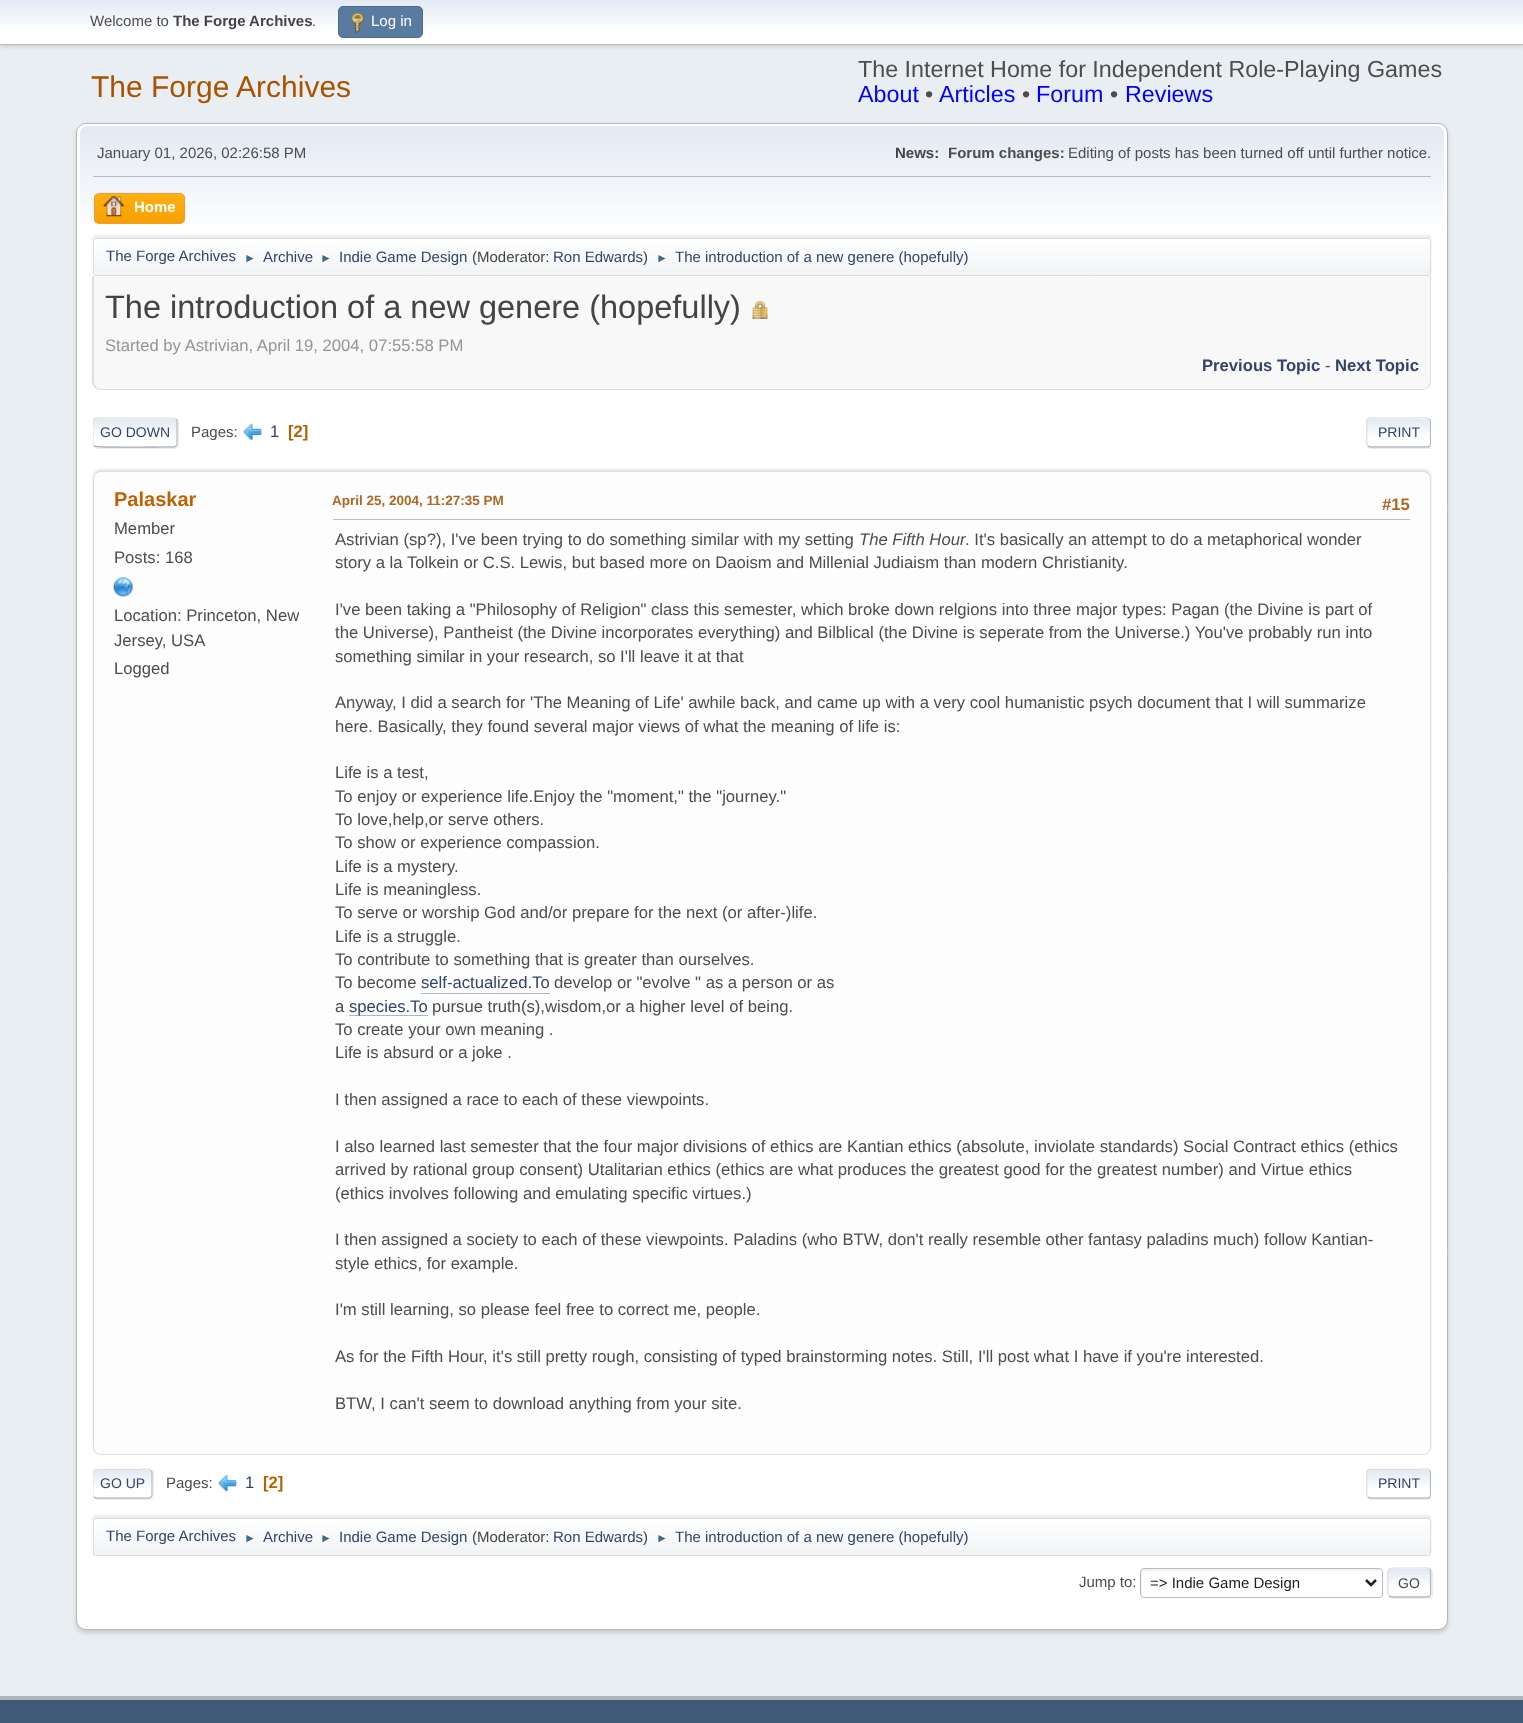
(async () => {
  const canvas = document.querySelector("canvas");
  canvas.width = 1523;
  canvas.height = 1723;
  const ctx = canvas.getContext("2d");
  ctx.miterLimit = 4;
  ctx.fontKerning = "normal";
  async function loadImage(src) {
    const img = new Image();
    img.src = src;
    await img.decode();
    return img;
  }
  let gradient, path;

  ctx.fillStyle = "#e9eef2";
  ctx.fillRect(0, 0, 1523, 1723);
  ctx.fillStyle = "rgba(0, 0, 0, 0.16)";
  ctx.filter = "blur(2.5px)";
  ctx.beginPath();
  ctx.rect(0, 1, 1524, 45);
  ctx.fill();
  ctx.filter = "none";
  gradient = ctx.createLinearGradient(762, 0, 762, 44);
  gradient.addColorStop(0, "#e2e9f3");
  gradient.addColorStop(0.7, "#ffffff");
  ctx.fillStyle = gradient;
  ctx.fillRect(0, 0, 1523, 44);
  ctx.fillStyle = "#bbbbbb";
  ctx.fillRect(0, 44, 1523, 1);
  ctx.fillStyle = "#597b9f";
  ctx.beginPath();
  ctx.roundRect(338.5, 6.5, 84, 31, 4.5);
  ctx.fill();
  ctx.strokeStyle = "#4a6b8c";
  ctx.stroke();
  ctx.drawImage(await loadImage("img/1.png"), 351, 12, 13, 21);
  ctx.fillStyle = "rgba(0, 0, 0, 0.14)";
  ctx.filter = "blur(2px)";
  ctx.beginPath();
  ctx.roundRect(76, 125, 1372, 1508, 10);
  ctx.fill();
  ctx.filter = "none";
  ctx.fillStyle = "#ffffff";
  ctx.beginPath();
  ctx.roundRect(76.5, 123.5, 1371, 1506, 9.5);
  ctx.fill();
  ctx.strokeStyle = "#b8b8b8";
  ctx.stroke();
  gradient = ctx.createLinearGradient(762, 126, 762, 279);
  gradient.addColorStop(0, "#e2e9f3");
  gradient.addColorStop(0.7, "#ffffff");
  ctx.fillStyle = gradient;
  ctx.beginPath();
  ctx.roundRect(80, 126, 1364, 153, [8, 8, 0, 0]);
  ctx.fill();
  ctx.fillStyle = "#bbbbbb";
  ctx.fillRect(93, 176, 1338, 1);
  ctx.save();
  ctx.beginPath();
  ctx.roundRect(94, 193, 91, 31, 5);
  ctx.clip();
  gradient = ctx.createLinearGradient(139, 194, 139, 223);
  gradient.addColorStop(0, "#ffae14");
  gradient.addColorStop(1, "#f5a100");
  ctx.fillStyle = gradient;
  ctx.fillRect(94, 194, 91, 29);
  ctx.restore();
  ctx.beginPath();
  ctx.roundRect(94.5, 193.5, 90, 30, 4.5);
  ctx.strokeStyle = "#f49a3a";
  ctx.stroke();
  ctx.drawImage(await loadImage("img/2.png"), 103, 196, 21, 21);
  ctx.fillStyle = "rgba(0, 0, 0, 0.08)";
  ctx.filter = "blur(1px)";
  ctx.beginPath();
  ctx.roundRect(93, 235, 1338, 39, 2.5);
  ctx.fill();
  ctx.filter = "none";
  ctx.save();
  ctx.beginPath();
  ctx.roundRect(93, 238, 1338, 38, 2.5);
  ctx.clip();
  gradient = ctx.createLinearGradient(762, 239, 762, 275);
  gradient.addColorStop(0, "#ffffff");
  gradient.addColorStop(0.95, "#f1f3f5");
  ctx.fillStyle = gradient;
  ctx.fillRect(93, 239, 1338, 36);
  ctx.restore();
  ctx.beginPath();
  ctx.roundRect(93.5, 238.5, 1337, 37, 2);
  ctx.strokeStyle = "#dddddd";
  ctx.stroke();
  ctx.fillStyle = "#f8f8f8";
  ctx.beginPath();
  ctx.roundRect(93, 276, 1338, 114, [0, 0, 9, 9]);
  ctx.fill();
  ctx.fillStyle = "#dddddd";
  path = new Path2D("M92 276H1431V381C1431 386 1427 390 1422 390H101C96 390 92 386 92 381ZM94 276H1430V381C1430 385 1427 389 1422 389H101C97 389 94 385 94 381Z");
  ctx.fill(path, "evenodd");
  ctx.drawImage(await loadImage("img/3.png"), 752, 301, 16, 18);
  ctx.fillStyle = "rgba(221, 221, 221, 0.57)";
  ctx.filter = "blur(0.5px)";
  ctx.beginPath();
  ctx.roundRect(94, 419, 85, 30, 4);
  ctx.fill();
  ctx.filter = "none";
  ctx.fillStyle = "#ffffff";
  ctx.beginPath();
  ctx.roundRect(93, 418, 85, 30, 4);
  ctx.fill();
  ctx.save();
  ctx.beginPath();
  ctx.roundRect(93, 418, 85, 30, 4);
  ctx.clip();
  gradient = ctx.createLinearGradient(135, 419, 135, 446);
  gradient.addColorStop(0, "#e2e9f3");
  gradient.addColorStop(0.7, "#ffffff");
  ctx.fillStyle = gradient;
  ctx.fillRect(93, 419, 85, 27);
  gradient = ctx.createLinearGradient(135, 446, 135, 474);
  gradient.addColorStop(0, "#e2e9f3");
  gradient.addColorStop(0.7, "#ffffff");
  ctx.fillStyle = gradient;
  ctx.fillRect(93, 446, 85, 2);
  ctx.restore();
  path = new Path2D("M176 419C176.5 419.5 177 420.5 177 421V444C177 444.5 176.5 445.5 176 446");
  ctx.strokeStyle = "#bbbbbb";
  ctx.lineWidth = 1.2;
  ctx.stroke(path);
  path = new Path2D("M176 446L174 447H161C153.5 447 96.5 448 94.5 446H94");
  ctx.strokeStyle = "#aaaaaa";
  ctx.stroke(path);
  ctx.save();
  ctx.beginPath();
  ctx.rect(93, 409, 1338, 47);
  ctx.clip();
  path = new Path2D("M94 446C92 443.5 93 439 93 436C93 416 89 418 109 418H174L176 419");
  ctx.strokeStyle = "#dddddd";
  ctx.stroke(path);
  ctx.restore();
  ctx.drawImage(await loadImage("img/4.png"), 243, 423, 19, 18);
  ctx.save();
  ctx.beginPath();
  ctx.rect(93, 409, 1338, 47);
  ctx.clip();
  ctx.fillStyle = "rgba(221, 221, 221, 0.57)";
  ctx.filter = "blur(0.5px)";
  ctx.beginPath();
  ctx.roundRect(1368, 419, 65, 30, 4);
  ctx.fill();
  ctx.filter = "none";
  ctx.restore();
  ctx.beginPath();
  ctx.roundRect(1366, 418, 65, 30, 4);
  ctx.fill();
  ctx.save();
  ctx.beginPath();
  ctx.roundRect(1366, 418, 65, 30, 4);
  ctx.clip();
  gradient = ctx.createLinearGradient(1399, 419, 1399, 446);
  gradient.addColorStop(0, "#e2e9f3");
  gradient.addColorStop(0.7, "#ffffff");
  ctx.fillStyle = gradient;
  ctx.fillRect(1366, 419, 65, 27);
  gradient = ctx.createLinearGradient(1399, 446, 1399, 474);
  gradient.addColorStop(0, "#e2e9f3");
  gradient.addColorStop(0.7, "#ffffff");
  ctx.fillStyle = gradient;
  ctx.fillRect(1366, 446, 65, 2);
  ctx.restore();
  ctx.save();
  ctx.beginPath();
  ctx.rect(93, 409, 1338, 47);
  ctx.clip();
  path = new Path2D("M1429.5 419C1430.5 419.5 1430.5 420.5 1430.5 421V444C1430.5 444.5 1430.5 445.5 1429.5 446");
  ctx.strokeStyle = "#bbbbbb";
  ctx.stroke(path);
  ctx.restore();
  path = new Path2D("M1429.5 446L1428 447H1369.5L1368 446");
  ctx.stroke(path);
  path = new Path2D("M1368 446C1365.5 444 1367 435 1367 432.5C1367 416.5 1364 418 1379.5 418H1418C1422 418 1426.5 416.5 1429.5 419");
  ctx.strokeStyle = "#dddddd";
  ctx.stroke(path);
  ctx.fillStyle = "rgba(0, 0, 0, 0.1)";
  ctx.filter = "blur(1px)";
  ctx.beginPath();
  ctx.roundRect(93, 469, 1338, 984, 8);
  ctx.fill();
  ctx.filter = "none";
  ctx.fillStyle = "#fdfdfd";
  ctx.beginPath();
  ctx.roundRect(93.5, 471.5, 1337, 983, 7.5);
  ctx.fill();
  ctx.lineWidth = 1;
  ctx.stroke();
  ctx.drawImage(await loadImage("img/5.png"), 113, 577, 20, 20);
  for (const [x, y, w, h, color] of [
    [333, 519, 1077, 1, "#bfbfbf"],
    [421, 993, 129, 1, "#a8b6cf"],
    [349, 1015, 79, 1, "#a8b6cf"],
  ]) {
    ctx.fillStyle = color;
    ctx.fillRect(x, y, w, h);
  }
  ctx.fillStyle = "rgba(221, 221, 221, 0.57)";
  ctx.filter = "blur(0.5px)";
  ctx.beginPath();
  ctx.roundRect(94, 1470, 60, 30, 4);
  ctx.fill();
  ctx.filter = "none";
  ctx.fillStyle = "#ffffff";
  ctx.beginPath();
  ctx.roundRect(93, 1469, 60, 30, 4);
  ctx.fill();
  ctx.save();
  ctx.beginPath();
  ctx.roundRect(93, 1469, 60, 30, 4);
  ctx.clip();
  gradient = ctx.createLinearGradient(123, 1470, 123, 1498);
  gradient.addColorStop(0, "#e2e9f3");
  gradient.addColorStop(0.7, "#ffffff");
  ctx.fillStyle = gradient;
  ctx.fillRect(93, 1470, 60, 28);
  gradient = ctx.createLinearGradient(123, 1498, 123, 1525);
  gradient.addColorStop(0, "#e2e9f3");
  gradient.addColorStop(0.7, "#ffffff");
  ctx.fillStyle = gradient;
  ctx.fillRect(93, 1498, 60, 1);
  ctx.restore();
  path = new Path2D("M151 1470.5C151.5 1471 152 1471.5 152 1472.5V1495C152 1496 151.5 1496.5 151 1497");
  ctx.strokeStyle = "#bbbbbb";
  ctx.lineWidth = 1.2;
  ctx.stroke(path);
  path = new Path2D("M151 1497L149 1498H96L94 1497");
  ctx.strokeStyle = "#aaaaaa";
  ctx.stroke(path);
  ctx.save();
  ctx.beginPath();
  ctx.rect(93, 1460, 1338, 48);
  ctx.clip();
  path = new Path2D("M94 1497C92 1495 93 1486.5 93 1484C93 1468.5 90 1469.5 105 1469.5H140C140 1469.5 148.5 1468 151 1470.5");
  ctx.strokeStyle = "#dddddd";
  ctx.stroke(path);
  ctx.restore();
  ctx.drawImage(await loadImage("img/6.png"), 218, 1474, 19, 18);
  ctx.save();
  ctx.beginPath();
  ctx.rect(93, 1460, 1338, 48);
  ctx.clip();
  ctx.fillStyle = "rgba(221, 221, 221, 0.57)";
  ctx.filter = "blur(0.5px)";
  ctx.beginPath();
  ctx.roundRect(1368, 1470, 65, 30, 4);
  ctx.fill();
  ctx.filter = "none";
  ctx.restore();
  ctx.beginPath();
  ctx.roundRect(1366, 1469, 65, 30, 4);
  ctx.fill();
  ctx.save();
  ctx.beginPath();
  ctx.roundRect(1366, 1469, 65, 30, 4);
  ctx.clip();
  gradient = ctx.createLinearGradient(1399, 1470, 1399, 1498);
  gradient.addColorStop(0, "#e2e9f3");
  gradient.addColorStop(0.7, "#ffffff");
  ctx.fillStyle = gradient;
  ctx.fillRect(1366, 1470, 65, 28);
  gradient = ctx.createLinearGradient(1399, 1498, 1399, 1525);
  gradient.addColorStop(0, "#e2e9f3");
  gradient.addColorStop(0.7, "#ffffff");
  ctx.fillStyle = gradient;
  ctx.fillRect(1366, 1498, 65, 1);
  ctx.restore();
  ctx.save();
  ctx.beginPath();
  ctx.rect(93, 1460, 1338, 48);
  ctx.clip();
  path = new Path2D("M1429.5 1470.5C1430.5 1471 1430.5 1471.5 1430.5 1472.5V1495C1430.5 1496 1430.5 1496.5 1429.5 1497");
  ctx.strokeStyle = "#bbbbbb";
  ctx.stroke(path);
  ctx.restore();
  path = new Path2D("M1429.5 1497L1428 1498H1369.5L1368 1497");
  ctx.stroke(path);
  path = new Path2D("M1368 1497C1365.5 1495 1367 1486.5 1367 1484C1367 1468 1364 1469.5 1379.5 1469.5H1418C1422 1469.5 1426.5 1467.5 1429.5 1470V1470.5");
  ctx.strokeStyle = "#dddddd";
  ctx.stroke(path);
  ctx.fillStyle = "rgba(0, 0, 0, 0.08)";
  ctx.filter = "blur(1px)";
  ctx.beginPath();
  ctx.roundRect(93, 1515, 1338, 39, 2.5);
  ctx.fill();
  ctx.filter = "none";
  ctx.save();
  ctx.beginPath();
  ctx.roundRect(93, 1518, 1338, 38, 2.5);
  ctx.clip();
  gradient = ctx.createLinearGradient(762, 1519, 762, 1555);
  gradient.addColorStop(0, "#ffffff");
  gradient.addColorStop(0.95, "#f1f3f5");
  ctx.fillStyle = gradient;
  ctx.fillRect(93, 1519, 1338, 36);
  ctx.restore();
  ctx.beginPath();
  ctx.roundRect(93.5, 1518.5, 1337, 37, 2);
  ctx.lineWidth = 1;
  ctx.stroke();
  ctx.fillStyle = "#ecf1f8";
  path = new Path2D("M1145 1571C1166 1571 1380 1570 1381 1571C1381 1570 1380 1569 1378 1569H1144C1142 1569 1141 1570 1141 1572V1594C1141 1594 1141 1595 1142 1596V1574C1142 1572 1144 1571 1145 1571Z");
  ctx.fill(path);
  ctx.beginPath();
  ctx.roundRect(1140.5, 1568.5, 242, 29, 3.5);
  ctx.strokeStyle = "#bbbbbb";
  ctx.stroke();
  path = new Path2D("M1366 1580L1371 1585L1376 1580");
  ctx.strokeStyle = "#222222";
  ctx.lineWidth = 2.5;
  ctx.stroke(path);
  ctx.fillStyle = "rgba(221, 221, 221, 0.57)";
  ctx.filter = "blur(0.5px)";
  ctx.beginPath();
  ctx.roundRect(1389, 1569, 44, 30, 4);
  ctx.fill();
  ctx.filter = "none";
  ctx.fillStyle = "#ffffff";
  ctx.beginPath();
  ctx.roundRect(1388, 1568, 43, 30, 4);
  ctx.fill();
  ctx.save();
  ctx.beginPath();
  ctx.roundRect(1388, 1568, 43, 30, 4);
  ctx.clip();
  gradient = ctx.createLinearGradient(1409, 1569, 1409, 1596);
  gradient.addColorStop(0, "#e2e9f3");
  gradient.addColorStop(0.7, "#ffffff");
  ctx.fillStyle = gradient;
  ctx.fillRect(1388, 1569, 43, 27);
  gradient = ctx.createLinearGradient(1409, 1596, 1409, 1624);
  gradient.addColorStop(0, "#e2e9f3");
  gradient.addColorStop(0.7, "#ffffff");
  ctx.fillStyle = gradient;
  ctx.fillRect(1388, 1596, 43, 2);
  ctx.restore();
  path = new Path2D("M1429.5 1569C1430.5 1569.5 1430.5 1570.5 1430.5 1571V1594C1430.5 1594.5 1430.5 1595.5 1429.5 1596");
  ctx.strokeStyle = "#bbbbbb";
  ctx.lineWidth = 1.2;
  ctx.stroke(path);
  path = new Path2D("M1429.5 1596L1427.5 1597H1391L1389 1596");
  ctx.strokeStyle = "#aaaaaa";
  ctx.stroke(path);
  path = new Path2D("M1389 1596C1387 1594 1388 1585 1388 1582.5C1388 1569 1385 1568 1397.5 1568H1421.5C1423 1568 1428 1567 1429.5 1569");
  ctx.strokeStyle = "#dddddd";
  ctx.stroke(path);
  ctx.fillStyle = "#3e5a78";
  ctx.fillRect(0, 1700, 1523, 23);
  ctx.fillStyle = "#b2b6bd";
  ctx.fillRect(0, 1696, 1523, 4);
  ctx.font = "15px Liberation Sans";
  ctx.fillStyle = "#4d4d4d";
  ctx.fillText("Welcome to", 90, 26);
  ctx.font = "bold 15px Liberation Sans";
  ctx.fillStyle = "#444444";
  ctx.fillText("The Forge Archives", 173, 26);
  ctx.font = "15px Liberation Sans";
  ctx.fillStyle = "#4d4d4d";
  ctx.fillText(".", 312, 26);
  ctx.fillStyle = "#ffffff";
  ctx.fillText("Log in", 371, 26);
  ctx.font = "30px Liberation Sans";
  ctx.fillStyle = "#a85400";
  ctx.fillText("The Forge Archives", 91, 97);
  ctx.font = "23.3px Liberation Sans";
  ctx.fillStyle = "#4d4d4d";
  ctx.fillText("The Internet Home for Independent Role-Playing Games", 858, 77);
  ctx.fillStyle = "#0000ff";
  ctx.fillText("About", 858, 102);
  ctx.fillStyle = "#4d4d4d";
  ctx.fillText("•", 925, 102);
  ctx.fillStyle = "#0000ff";
  ctx.fillText("Articles", 939, 102);
  ctx.fillStyle = "#4d4d4d";
  ctx.fillText("•", 1022, 102);
  ctx.fillStyle = "#0000ff";
  ctx.fillText("Forum", 1036, 102);
  ctx.fillStyle = "#4d4d4d";
  ctx.fillText("•", 1110, 102);
  ctx.fillStyle = "#0000ff";
  ctx.fillText("Reviews", 1125, 102);
  ctx.font = "15px Liberation Sans";
  ctx.fillStyle = "#4d4d4d";
  ctx.fillText("January 01, 2026, 02:26:58 PM", 97, 158);
  ctx.font = "bold 15px Liberation Sans";
  ctx.fillStyle = "#444444";
  ctx.fillText("News:", 895, 158);
  ctx.fillStyle = "#4d4d4d";
  ctx.fillText("Forum changes:", 948, 158);
  ctx.font = "15px Liberation Sans";
  ctx.fillText("Editing of posts has been turned off until further notice.", 1068, 158);
  ctx.font = "bold 15px Liberation Sans";
  ctx.fillStyle = "#ffffff";
  ctx.fillText("Home", 134, 212);
  ctx.font = "15px Liberation Sans";
  ctx.fillStyle = "#334466";
  ctx.fillText("The Forge Archives", 106, 261);
  ctx.font = "12px Liberation Sans";
  ctx.fillStyle = "#3f6b8c";
  ctx.fillText("►", 244, 262);
  ctx.font = "15px Liberation Sans";
  ctx.fillStyle = "#334466";
  ctx.fillText("Archive", 263, 262);
  ctx.font = "12px Liberation Sans";
  ctx.fillStyle = "#3f6b8c";
  ctx.fillText("►", 320, 262);
  ctx.font = "15px Liberation Sans";
  ctx.fillStyle = "#334466";
  ctx.fillText("Indie Game Design", 339, 262);
  ctx.fillStyle = "#444444";
  ctx.fillText("(Moderator:", 472, 262);
  ctx.fillStyle = "#334466";
  ctx.fillText("Ron Edwards", 553, 262);
  ctx.fillStyle = "#444444";
  ctx.fillText(")", 643, 262);
  ctx.font = "12px Liberation Sans";
  ctx.fillStyle = "#3f6b8c";
  ctx.fillText("►", 656, 262);
  ctx.font = "15px Liberation Sans";
  ctx.fillStyle = "#334466";
  ctx.fillText("The introduction of a new genere (hopefully)", 675, 262);
  ctx.font = "32.5px Liberation Sans";
  ctx.fillStyle = "#444444";
  ctx.fillText("The introduction of a new genere (hopefully)", 105, 318);
  ctx.font = "16.67px Liberation Sans";
  ctx.fillStyle = "#959595";
  ctx.fillText("Started by Astrivian, April 19, 2004, 07:55:58 PM", 105, 351);
  ctx.font = "bold 16.67px Liberation Sans";
  ctx.fillStyle = "#334466";
  ctx.fillText("Previous Topic", 1202, 371);
  ctx.font = "16.67px Liberation Sans";
  ctx.fillStyle = "#4d4d4d";
  ctx.fillText("-", 1325, 371);
  ctx.font = "bold 16.67px Liberation Sans";
  ctx.fillStyle = "#334466";
  ctx.fillText("Next Topic", 1335, 371);
  ctx.font = "14px Liberation Sans";
  ctx.fillText("GO DOWN", 100, 437);
  ctx.font = "15px Liberation Sans";
  ctx.fillStyle = "#4d4d4d";
  ctx.fillText("Pages:", 191, 437);
  ctx.font = "16.67px Liberation Sans";
  ctx.fillStyle = "#334466";
  ctx.fillText("1", 270, 437);
  ctx.font = "bold 16.67px Liberation Sans";
  ctx.fillStyle = "#b46100";
  ctx.fillText("[2]", 288, 437);
  ctx.font = "14px Liberation Sans";
  ctx.fillStyle = "#334466";
  ctx.fillText("PRINT", 1378, 437);
  ctx.font = "bold 20px Liberation Sans";
  ctx.fillStyle = "#c06002";
  ctx.fillText("Palaskar", 114, 506);
  ctx.font = "16.67px Liberation Sans";
  ctx.fillStyle = "#4d4d4d";
  for (const [text, x, y] of [
    ["Member", 114, 534],
    ["Posts: 168", 114, 563],
    ["Location: Princeton, New", 114, 621],
    ["Jersey, USA", 114, 646],
    ["Logged", 114, 674],
  ]) {
    ctx.fillText(text, x, y);
  }
  ctx.font = "bold 13.5px Liberation Sans";
  ctx.fillStyle = "#ad6825";
  ctx.fillText("April 25, 2004, 11:27:35 PM", 332, 505);
  ctx.font = "bold 16.67px Liberation Sans";
  ctx.fillText("#15", 1382, 510);
  ctx.font = "16.67px Liberation Sans";
  ctx.fillStyle = "#4d4d4d";
  ctx.fillText("Astrivian (sp?), I've been trying to do something similar with my setting", 335, 545);
  ctx.font = "italic 16.67px Liberation Sans";
  ctx.fillText("The Fifth Hour", 859, 545);
  ctx.font = "16.67px Liberation Sans";
  for (const [text, x, y] of [
    [". It's basically an attempt to do a metaphorical wonder", 965, 545],
    ["story a la Tolkein or C.S. Lewis, but based more on Daoism and Millenial Judiaism than modern Christianity.", 335, 568],
    ["I've been taking a \"Philosophy of Religion\" class this semester, which broke down relgions into three major types: Pagan (the Divine is part of", 335, 615],
    ["the Universe), Pantheist (the Divine incorporates everything) and Bilblical (the Divine is seperate from the Universe.) You've probably run into", 335, 638],
    ["something similar in your research, so I'll leave it at that", 335, 662],
    ["Anyway, I did a search for 'The Meaning of Life' awhile back, and came up with a very cool humanistic psych document that I will summarize", 335, 708],
    ["here. Basically, they found several major views of what the meaning of life is:", 335, 732],
    ["Life is a test,", 335, 778],
    ["To enjoy or experience life.Enjoy the \"moment,\" the \"journey.\"", 335, 802],
    ["To love,help,or serve others.", 335, 825],
    ["To show or experience compassion.", 335, 848],
    ["Life is a mystery.", 335, 872],
    ["Life is meaningless.", 335, 895],
    ["To serve or worship God and/or prepare for the next (or after-)life.", 335, 918],
    ["Life is a struggle.", 335, 942],
    ["To contribute to something that is greater than ourselves.", 335, 965],
    ["To become", 335, 988],
  ]) {
    ctx.fillText(text, x, y);
  }
  ctx.fillStyle = "#334466";
  ctx.fillText("self-actualized.To", 421, 988);
  ctx.fillStyle = "#4d4d4d";
  ctx.fillText("develop or \"evolve \" as a person or as", 554, 988);
  ctx.fillText("a", 335, 1012);
  ctx.fillStyle = "#334466";
  ctx.fillText("species.To", 349, 1012);
  ctx.fillStyle = "#4d4d4d";
  for (const [text, x, y] of [
    ["pursue truth(s),wisdom,or a higher level of being.", 432, 1012],
    ["To create your own meaning .", 335, 1035],
    ["Life is absurd or a joke .", 335, 1058],
    ["I then assigned a race to each of these viewpoints.", 335, 1105],
    ["I also learned last semester that the four major divisions of ethics are Kantian ethics (absolute, inviolate standards) Social Contract ethics (ethics", 335, 1152],
    ["arrived by rational group consent) Utalitarian ethics (ethics are what produces the greatest good for the greatest number) and Virtue ethics", 335, 1175],
    ["(ethics involves following and emulating specific virtues.)", 335, 1199],
    ["I then assigned a society to each of these viewpoints. Paladins (who BTW, don't really resemble other fantasy paladins much) follow Kantian-", 335, 1245],
    ["style ethics, for example.", 335, 1269],
    ["I'm still learning, so please feel free to correct me, people.", 335, 1315],
    ["As for the Fifth Hour, it's still pretty rough, consisting of typed brainstorming notes. Still, I'll post what I have if you're interested.", 335, 1362],
    ["BTW, I can't seem to download anything from your site.", 335, 1409],
  ]) {
    ctx.fillText(text, x, y);
  }
  ctx.font = "14px Liberation Sans";
  ctx.fillStyle = "#334466";
  ctx.fillText("GO UP", 100, 1488);
  ctx.font = "15px Liberation Sans";
  ctx.fillStyle = "#4d4d4d";
  ctx.fillText("Pages:", 166, 1488);
  ctx.font = "16.67px Liberation Sans";
  ctx.fillStyle = "#334466";
  ctx.fillText("1", 245, 1488);
  ctx.font = "bold 16.67px Liberation Sans";
  ctx.fillStyle = "#b46100";
  ctx.fillText("[2]", 263, 1488);
  ctx.font = "14px Liberation Sans";
  ctx.fillStyle = "#334466";
  ctx.fillText("PRINT", 1378, 1488);
  ctx.font = "15px Liberation Sans";
  ctx.fillText("The Forge Archives", 106, 1541);
  ctx.font = "12px Liberation Sans";
  ctx.fillStyle = "#3f6b8c";
  ctx.fillText("►", 244, 1542);
  ctx.font = "15px Liberation Sans";
  ctx.fillStyle = "#334466";
  ctx.fillText("Archive", 263, 1542);
  ctx.font = "12px Liberation Sans";
  ctx.fillStyle = "#3f6b8c";
  ctx.fillText("►", 320, 1542);
  ctx.font = "15px Liberation Sans";
  ctx.fillStyle = "#334466";
  ctx.fillText("Indie Game Design", 339, 1542);
  ctx.fillStyle = "#444444";
  ctx.fillText("(Moderator:", 472, 1542);
  ctx.fillStyle = "#334466";
  ctx.fillText("Ron Edwards", 553, 1542);
  ctx.fillStyle = "#444444";
  ctx.fillText(")", 643, 1542);
  ctx.font = "12px Liberation Sans";
  ctx.fillStyle = "#3f6b8c";
  ctx.fillText("►", 656, 1542);
  ctx.font = "15px Liberation Sans";
  ctx.fillStyle = "#334466";
  ctx.fillText("The introduction of a new genere (hopefully)", 675, 1542);
  ctx.fillStyle = "#4d4d4d";
  ctx.fillText("Jump to:", 1079, 1587);
  ctx.fillStyle = "#222222";
  ctx.fillText("=> Indie Game Design", 1150, 1588);
  ctx.font = "14px Liberation Sans";
  ctx.fillStyle = "#444444";
  ctx.fillText("GO", 1398, 1588);
})();
